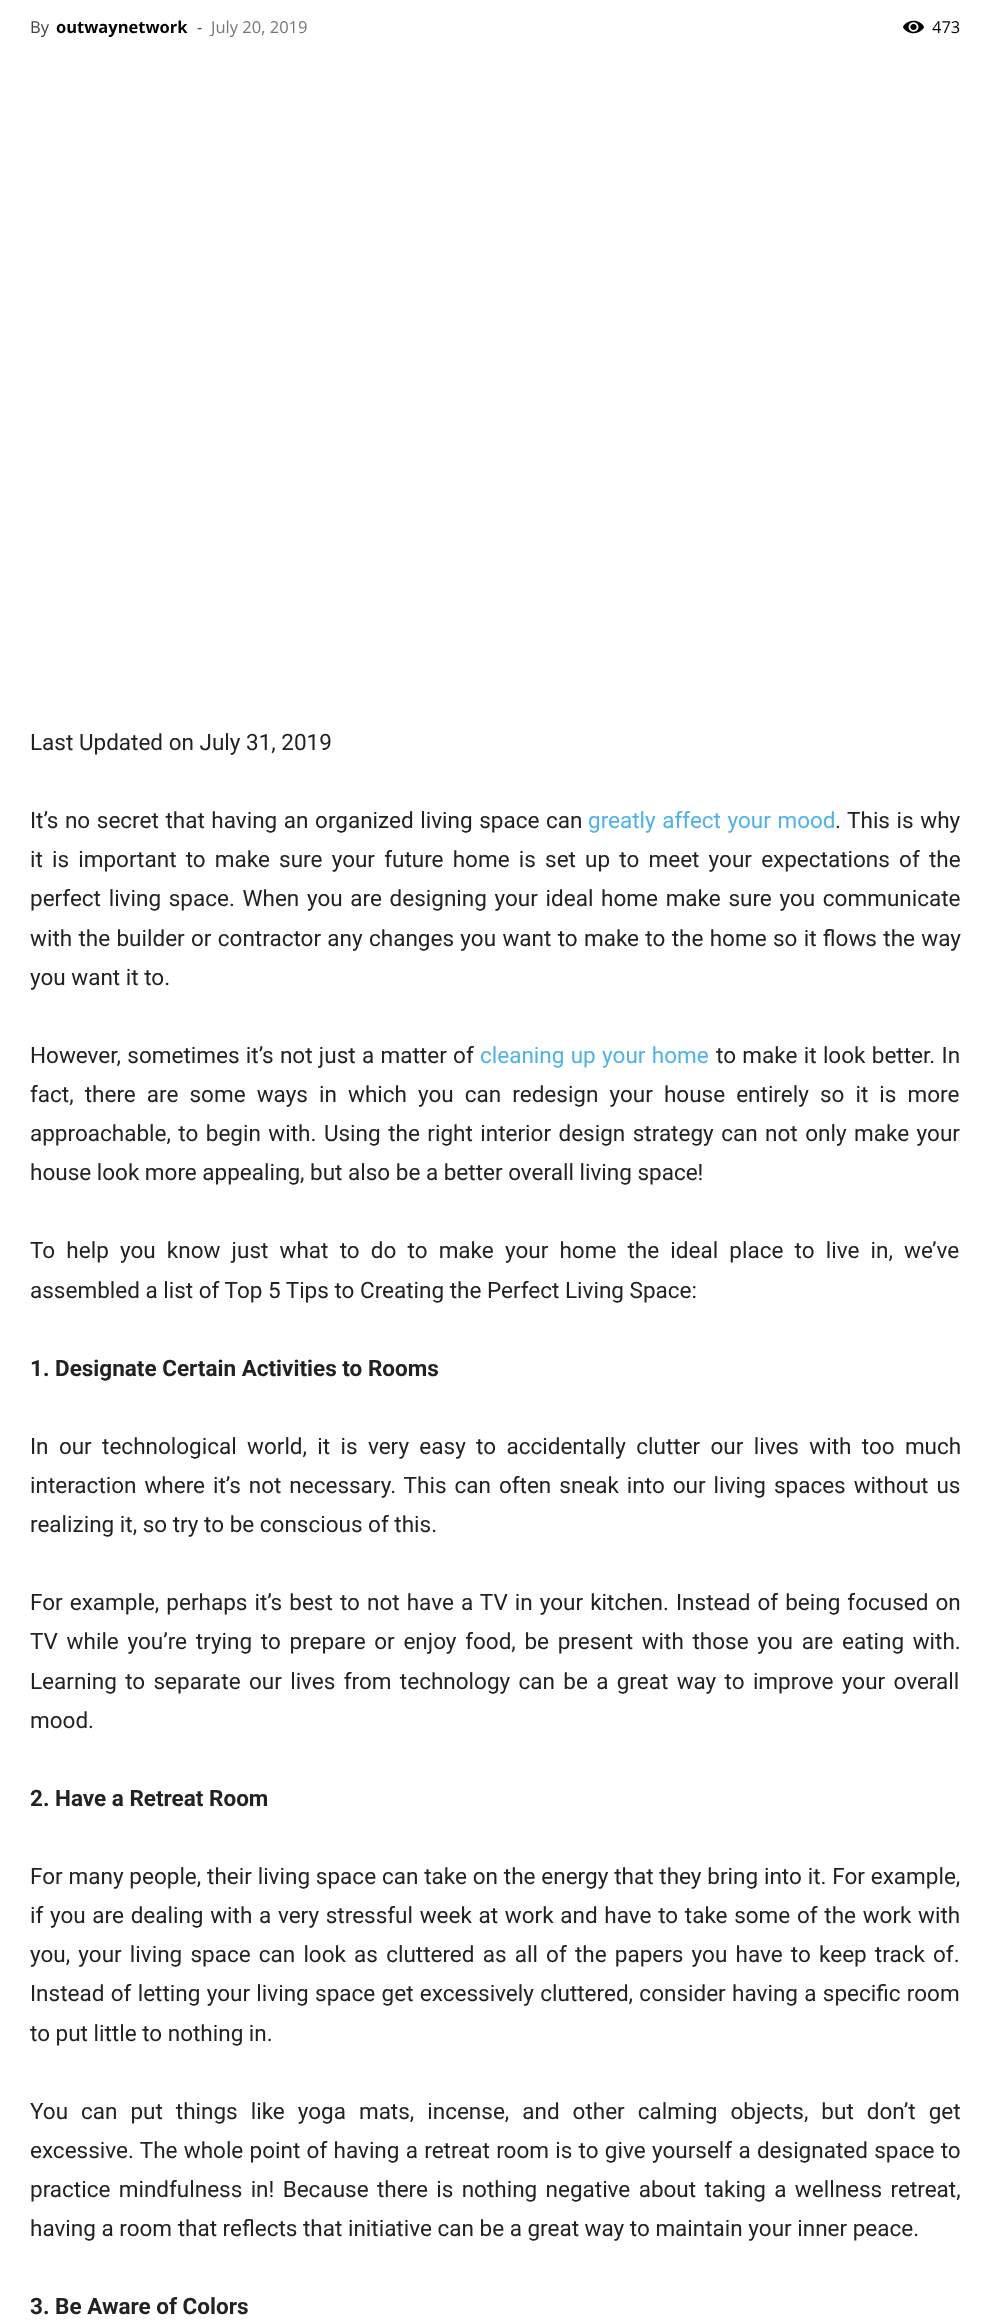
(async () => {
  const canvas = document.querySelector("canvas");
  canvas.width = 989;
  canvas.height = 2323;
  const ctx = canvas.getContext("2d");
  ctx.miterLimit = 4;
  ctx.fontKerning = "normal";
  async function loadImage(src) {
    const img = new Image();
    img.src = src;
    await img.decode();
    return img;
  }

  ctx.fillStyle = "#ffffff";
  ctx.fillRect(0, 0, 989, 2323);
  ctx.drawImage(await loadImage("img/1.png"), 903, 20, 21, 14);
  ctx.font = "16.5px Open Sans";
  ctx.fillStyle = "#444444";
  ctx.fillText("By", 30, 33);
  ctx.font = "bold 16.5px Open Sans";
  ctx.fillStyle = "#000000";
  ctx.fillText("outwaynetwork", 56, 33);
  ctx.font = "16.5px Open Sans";
  ctx.fillStyle = "#444444";
  ctx.fillText("-", 197, 33);
  ctx.fillStyle = "#767676";
  ctx.fillText("July 20, 2019", 211, 33);
  ctx.fillStyle = "#000000";
  ctx.fillText("473", 932, 33);
  ctx.font = "22.5px Roboto";
  ctx.fillStyle = "#222222";
  ctx.fillText("Last Updated on July 31, 2019", 30, 750);
  ctx.wordSpacing = "1px";
  ctx.fillText("It’s no secret that having an organized living space can", 30, 828);
  ctx.fillStyle = "#4db2ec";
  ctx.fillText("greatly affect your mood", 588, 828);
  ctx.fillStyle = "#222222";
  ctx.fillText(". This is why", 835, 828);
  ctx.wordSpacing = "3.6px";
  ctx.fillText("it is important to make sure your future home is set up to meet your expectations of the", 30, 867);
  ctx.wordSpacing = "2.1px";
  ctx.fillText("perfect living space. When you are designing your ideal home make sure you communicate", 30, 906);
  ctx.wordSpacing = "0.75px";
  ctx.fillText("with the builder or contractor any changes you want to make to the home so it flows the way", 30, 946);
  ctx.wordSpacing = "0px";
  ctx.fillText("you want it to.", 30, 985);
  ctx.wordSpacing = "0.75px";
  ctx.fillText("However, sometimes it’s not just a matter of", 30, 1063);
  ctx.fillStyle = "#4db2ec";
  ctx.fillText("cleaning up your home", 480, 1063);
  ctx.fillStyle = "#222222";
  ctx.fillText("to make it look better. In", 716, 1063);
  ctx.wordSpacing = "5.5px";
  ctx.fillText("fact, there are some ways in which you can redesign your house entirely so it is more", 30, 1102);
  ctx.wordSpacing = "1.9px";
  ctx.fillText("approachable, to begin with. Using the right interior design strategy can not only make your", 30, 1141);
  ctx.wordSpacing = "0px";
  ctx.fillText("house look more appealing, but also be a better overall living space!", 30, 1180);
  ctx.wordSpacing = "5.6px";
  ctx.fillText("To help you know just what to do to make your home the ideal place to live in, we’ve", 30, 1258);
  ctx.wordSpacing = "0px";
  ctx.fillText("assembled a list of Top 5 Tips to Creating the Perfect Living Space:", 30, 1298);
  ctx.font = "bold 22.5px Roboto";
  ctx.fillText("1. Designate Certain Activities to Rooms", 30, 1376);
  ctx.wordSpacing = "4.75px";
  ctx.font = "22.5px Roboto";
  ctx.fillText("In our technological world, it is very easy to accidentally clutter our lives with too much", 30, 1454);
  ctx.wordSpacing = "2.4px";
  ctx.fillText("interaction where it’s not necessary. This can often sneak into our living spaces without us", 30, 1493);
  ctx.wordSpacing = "0px";
  ctx.fillText("realizing it, so try to be conscious of this.", 30, 1532);
  ctx.wordSpacing = "1.5px";
  ctx.fillText("For example, perhaps it’s best to not have a TV in your kitchen. Instead of being focused on", 30, 1610);
  ctx.wordSpacing = "3.1px";
  ctx.fillText("TV while you’re trying to prepare or enjoy food, be present with those you are eating with.", 30, 1649);
  ctx.wordSpacing = "2.75px";
  ctx.fillText("Learning to separate our lives from technology can be a great way to improve your overall", 30, 1689);
  ctx.wordSpacing = "0px";
  ctx.fillText("mood.", 30, 1728);
  ctx.font = "bold 22.5px Roboto";
  ctx.fillText("2. Have a Retreat Room", 30, 1806);
  ctx.wordSpacing = "0.25px";
  ctx.font = "22.5px Roboto";
  ctx.fillText("For many people, their living space can take on the energy that they bring into it. For example,", 30, 1884);
  ctx.wordSpacing = "1.1px";
  ctx.fillText("if you are dealing with a very stressful week at work and have to take some of the work with", 30, 1923);
  ctx.wordSpacing = "2.6px";
  ctx.fillText("you, your living space can look as cluttered as all of the papers you have to keep track of.", 30, 1962);
  ctx.wordSpacing = "0.75px";
  ctx.fillText("Instead of letting your living space get excessively cluttered, consider having a specific room", 30, 2001);
  ctx.wordSpacing = "0px";
  ctx.fillText("to put little to nothing in.", 30, 2041);
  ctx.wordSpacing = "7.4px";
  ctx.fillText("You can put things like yoga mats, incense, and other calming objects, but don’t get", 30, 2119);
  ctx.wordSpacing = "0.7px";
  ctx.fillText("excessive. The whole point of having a retreat room is to give yourself a designated space to", 30, 2158);
  ctx.wordSpacing = "2.75px";
  ctx.fillText("practice mindfulness in! Because there is nothing negative about taking a wellness retreat,", 30, 2197);
  ctx.wordSpacing = "0px";
  ctx.fillText("having a room that reflects that initiative can be a great way to maintain your inner peace.", 30, 2236);
  ctx.font = "bold 22.5px Roboto";
  ctx.fillText("3. Be Aware of Colors", 30, 2314);
})();
